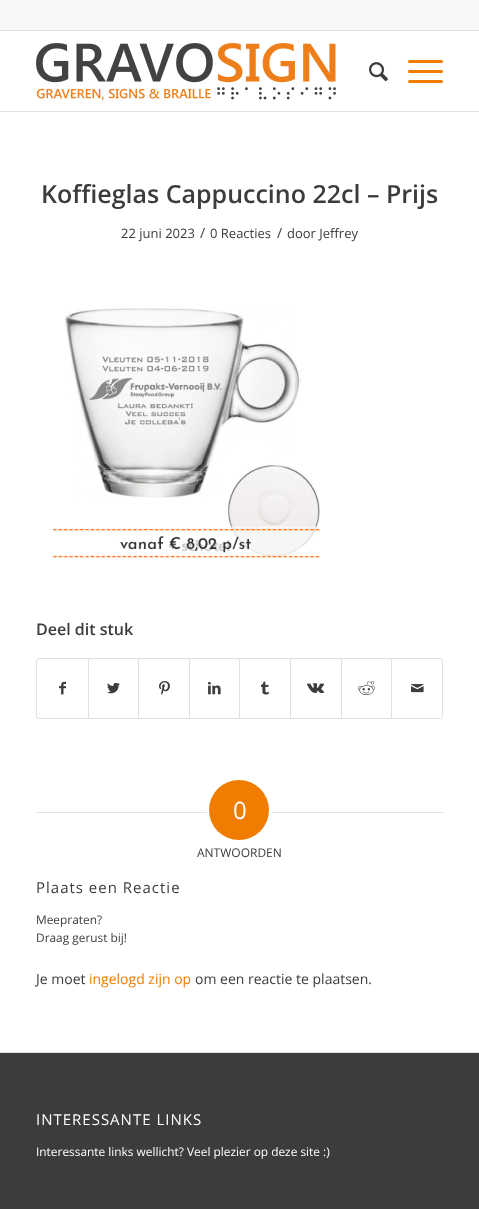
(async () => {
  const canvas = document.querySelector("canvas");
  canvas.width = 479;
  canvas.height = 1209;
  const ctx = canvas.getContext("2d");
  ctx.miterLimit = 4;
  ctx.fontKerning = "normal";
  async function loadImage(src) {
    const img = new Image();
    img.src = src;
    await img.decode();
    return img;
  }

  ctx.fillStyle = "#ffffff";
  ctx.fillRect(0, 0, 479, 1209);
  for (const [x, y, w, h, color] of [
    [0, 0, 479, 30, "#f8f8f8"],
    [0, 30, 479, 1, "#e1e1e1"],
    [0, 111, 479, 1, "#e1e1e1"],
  ]) {
    ctx.fillStyle = color;
    ctx.fillRect(x, y, w, h);
  }
  ctx.drawImage(await loadImage("img/1.png"), 36, 43, 300, 57);
  ctx.drawImage(await loadImage("img/2.png"), 369, 62, 19, 20);
  ctx.fillStyle = "#f07c00";
  ctx.beginPath();
  ctx.roundRect(408, 70, 35, 3, 1.5);
  ctx.fill();
  ctx.beginPath();
  ctx.roundRect(408, 60, 35, 3, 1.5);
  ctx.fill();
  ctx.beginPath();
  ctx.roundRect(408, 80, 35, 3, 1.5);
  ctx.fill();
  ctx.drawImage(await loadImage("img/3.png"), 52, 308, 268, 250);
  ctx.beginPath();
  ctx.roundRect(36.5, 658.5, 406, 60, 2.5);
  ctx.strokeStyle = "#e1e1e1";
  ctx.stroke();
  ctx.drawImage(await loadImage("img/4.png"), 59, 681, 7, 14);
  ctx.fillStyle = "#e1e1e1";
  ctx.fillRect(88, 659, 1, 59);
  ctx.drawImage(await loadImage("img/5.png"), 107, 682, 13, 12);
  ctx.fillRect(138, 659, 1, 59);
  ctx.drawImage(await loadImage("img/6.png"), 159, 681, 11, 14);
  ctx.fillRect(189, 659, 1, 59);
  ctx.drawImage(await loadImage("img/7.png"), 208, 681, 13, 14);
  ctx.fillRect(239, 659, 1, 59);
  ctx.drawImage(await loadImage("img/8.png"), 261, 681, 8, 14);
  ctx.fillRect(290, 659, 1, 59);
  ctx.drawImage(await loadImage("img/9.png"), 307, 683, 17, 10);
  ctx.fillRect(341, 659, 1, 59);
  ctx.drawImage(await loadImage("img/10.png"), 358, 681, 17, 15);
  ctx.fillRect(391, 659, 1, 59);
  ctx.drawImage(await loadImage("img/11.png"), 411, 684, 13, 9);
  ctx.fillRect(36, 812, 171, 1);
  ctx.fillStyle = "#f07c00";
  ctx.beginPath();
  ctx.arc(239, 810, 30, 0, Math.PI * 2);
  ctx.fill();
  for (const [x, y, w, h, color] of [
    [272, 812, 171, 1, "#e1e1e1"],
    [0, 1053, 479, 156, "#3c3c3b"],
    [0, 1052, 479, 1, "#e1e1e1"],
  ]) {
    ctx.fillStyle = color;
    ctx.fillRect(x, y, w, h);
  }
  ctx.font = "600 25px Open Sans";
  ctx.fillStyle = "#3c3c3b";
  ctx.fillText("Koffieglas Cappuccino 22cl – Prijs", 41, 203);
  ctx.font = "13px Open Sans";
  ctx.fillText("22 juni 2023", 121, 238);
  ctx.font = "14px Open Sans";
  ctx.fillText("/", 200, 238);
  ctx.font = "13px Open Sans";
  ctx.fillText("0 Reacties", 210, 238);
  ctx.font = "14px Open Sans";
  ctx.fillText("/", 277, 238);
  ctx.font = "13px Open Sans";
  ctx.fillText("door Jeffrey", 287, 238);
  ctx.font = "600 16px Open Sans";
  ctx.fillText("Deel dit stuk", 36, 635);
  ctx.font = "24px Open Sans";
  ctx.fillStyle = "#ffffff";
  ctx.fillText("0", 233, 819);
  ctx.font = "12px Open Sans";
  ctx.fillStyle = "#3c3c3b";
  ctx.fillText("ANTWOORDEN", 197, 857);
  ctx.letterSpacing = "1px";
  ctx.font = "15px Open Sans";
  ctx.fillText("Plaats een Reactie", 36, 893);
  ctx.letterSpacing = "0px";
  ctx.font = "11.9px Open Sans";
  ctx.fillText("Meepraten?", 36, 924);
  ctx.fillText("Draag gerust bij!", 36, 942);
  ctx.font = "14px Open Sans";
  ctx.fillText("Je moet", 36, 984);
  ctx.fillStyle = "#f07c00";
  ctx.fillText("ingelogd zijn op", 89, 984);
  ctx.fillStyle = "#3c3c3b";
  ctx.fillText("om een reactie te plaatsen.", 195, 984);
  ctx.letterSpacing = "1px";
  ctx.font = "15px Open Sans";
  ctx.fillStyle = "#ffffff";
  ctx.fillText("INTERESSANTE LINKS", 36, 1125);
  ctx.letterSpacing = "0px";
  ctx.font = "11.9px Open Sans";
  ctx.fillText("Interessante links wellicht? Veel plezier op deze site :)", 36, 1156);
})();
